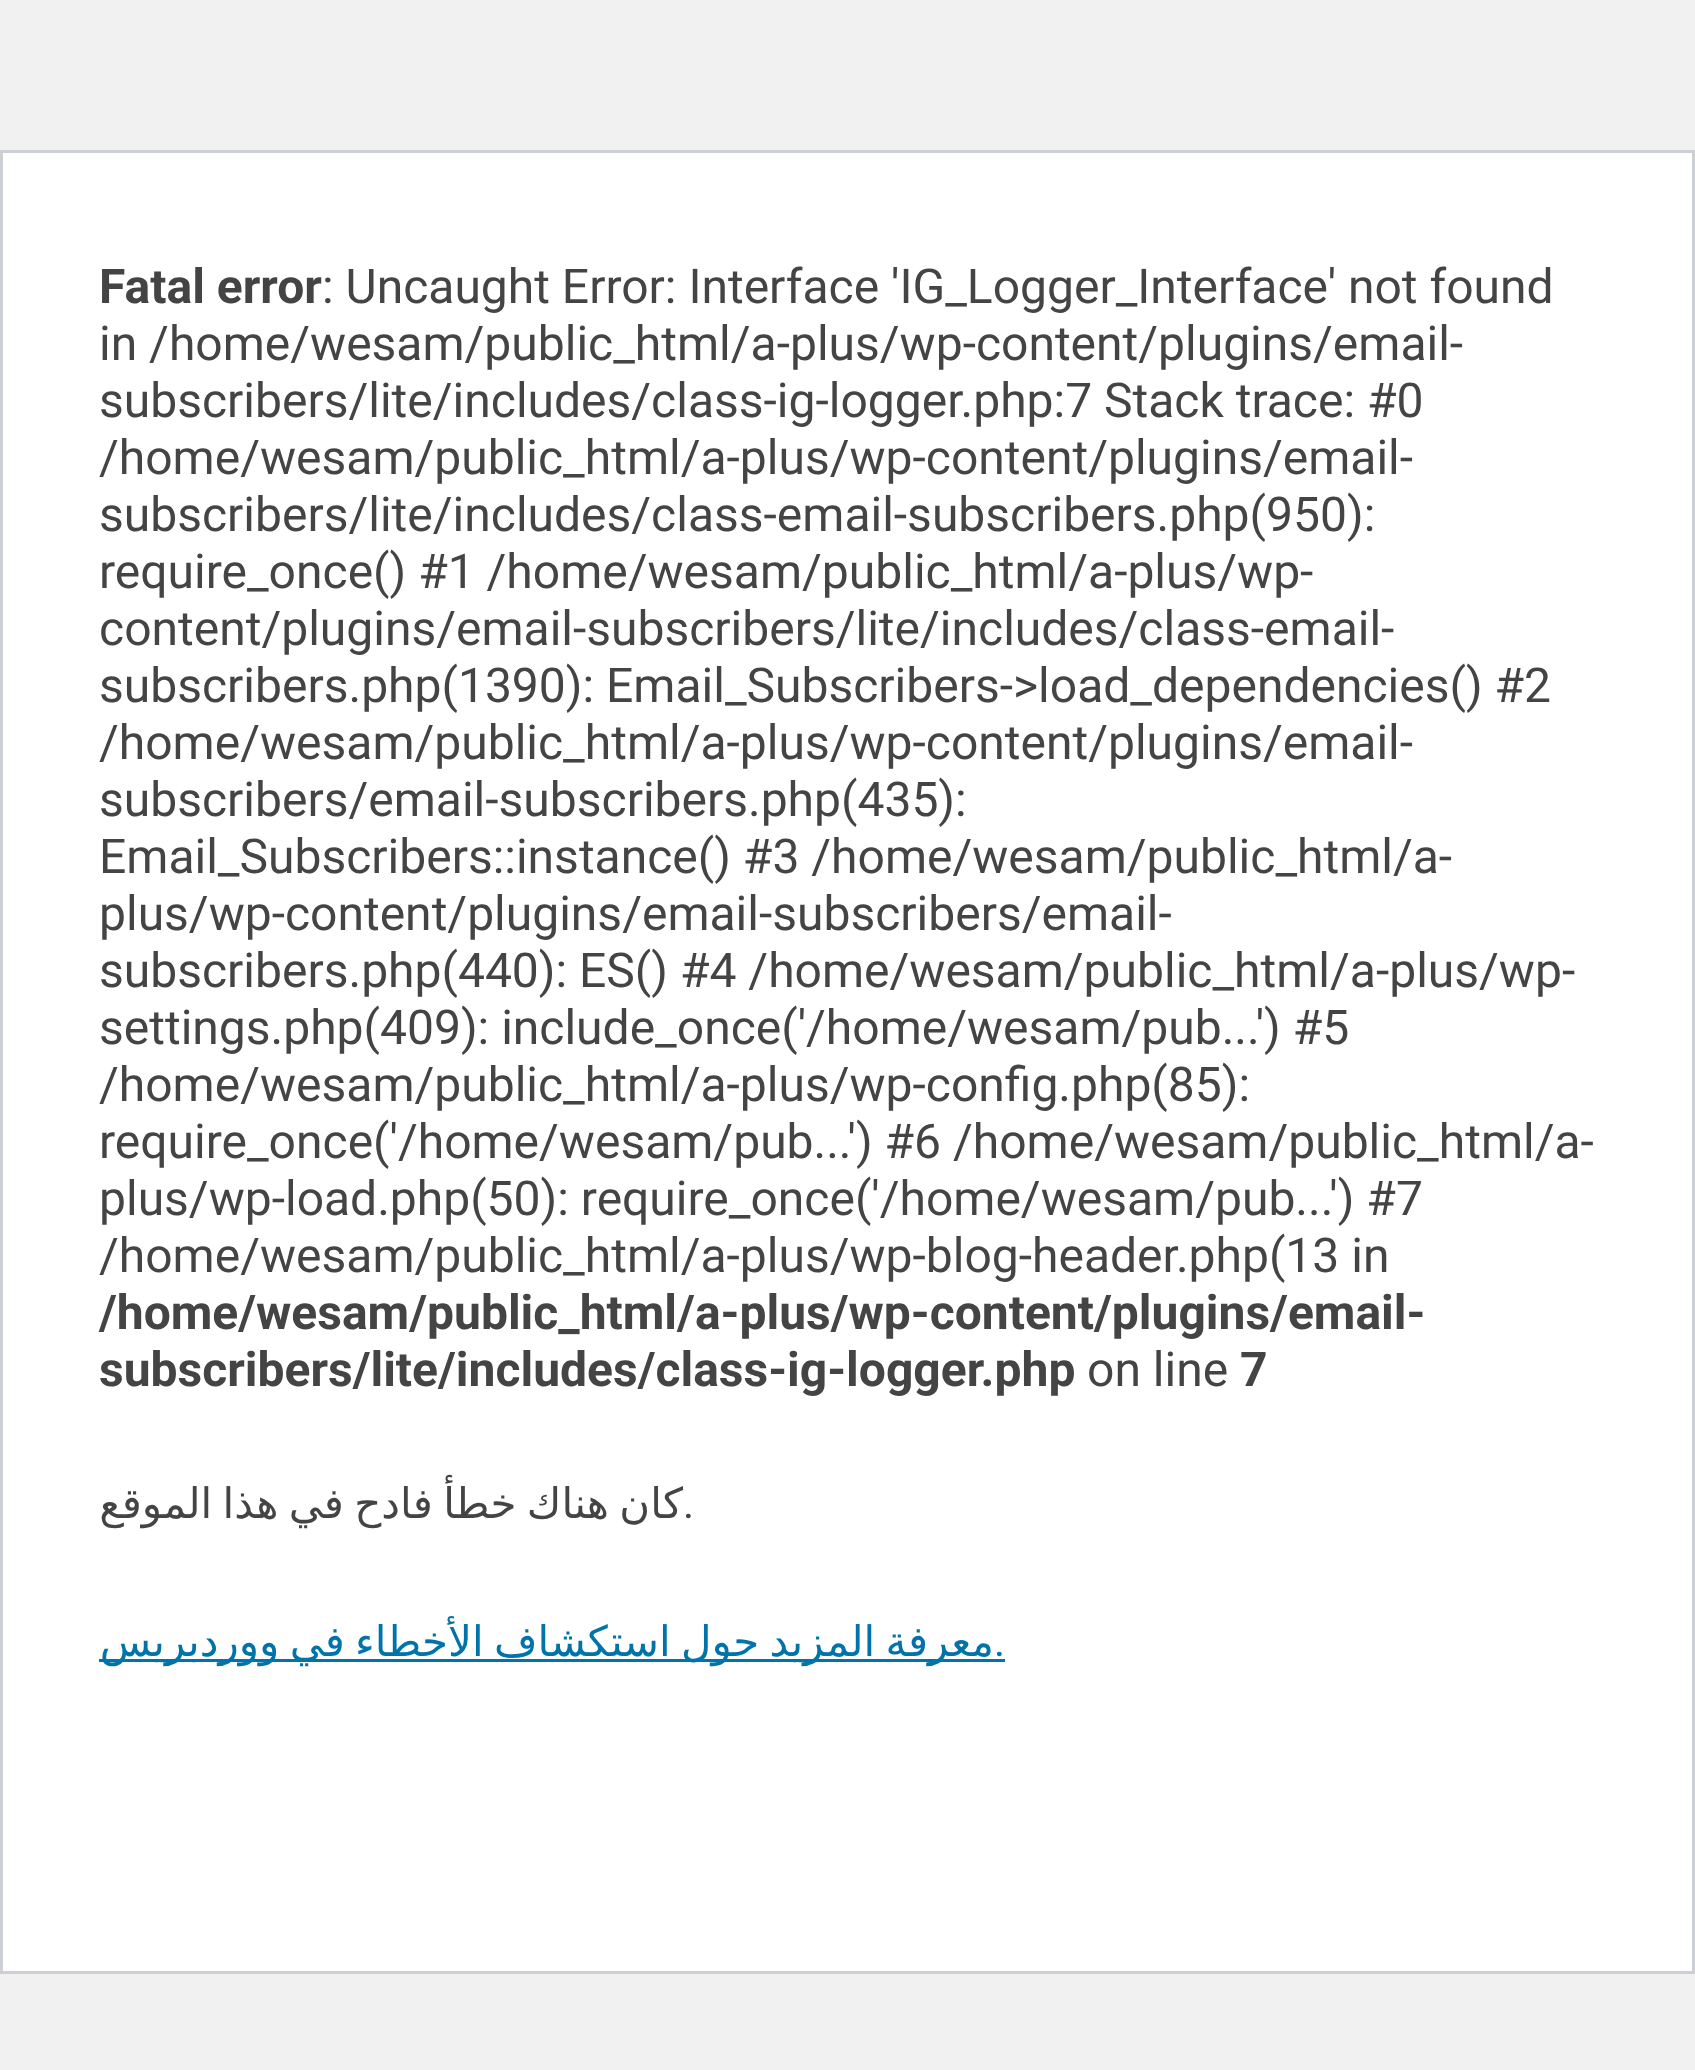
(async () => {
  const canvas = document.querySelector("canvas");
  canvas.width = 1695;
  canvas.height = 2070;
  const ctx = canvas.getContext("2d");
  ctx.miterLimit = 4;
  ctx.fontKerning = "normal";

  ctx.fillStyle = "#f1f1f1";
  ctx.fillRect(0, 0, 1695, 2070);
  ctx.fillStyle = "#ffffff";
  ctx.beginPath();
  ctx.rect(1.5, 151.5, 1692, 1821);
  ctx.fill();
  ctx.strokeStyle = "#ccd0d4";
  ctx.lineWidth = 3;
  ctx.stroke();
  ctx.fillStyle = "#0073aa";
  ctx.fillRect(99, 1659, 906, 3);
  ctx.font = "bold 48px Roboto";
  ctx.fillStyle = "#444444";
  ctx.fillText("Fatal error", 99, 303);
  ctx.font = "48px Roboto";
  for (const [text, x, y] of [
    [": Uncaught Error: Interface 'IG_Logger_Interface' not found", 322, 303],
    ["in /home/wesam/public_html/a-plus/wp-content/plugins/email-", 99, 360],
    ["subscribers/lite/includes/class-ig-logger.php:7 Stack trace: #0", 99, 417],
    ["/home/wesam/public_html/a-plus/wp-content/plugins/email-", 99, 474],
    ["subscribers/lite/includes/class-email-subscribers.php(950):", 99, 531],
    ["require_once() #1 /home/wesam/public_html/a-plus/wp-", 99, 588],
    ["content/plugins/email-subscribers/lite/includes/class-email-", 99, 645],
    ["subscribers.php(1390): Email_Subscribers->load_dependencies() #2", 99, 702],
    ["/home/wesam/public_html/a-plus/wp-content/plugins/email-", 99, 759],
    ["subscribers/email-subscribers.php(435):", 99, 816],
    ["Email_Subscribers::instance() #3 /home/wesam/public_html/a-", 99, 873],
    ["plus/wp-content/plugins/email-subscribers/email-", 99, 930],
    ["subscribers.php(440): ES() #4 /home/wesam/public_html/a-plus/wp-", 99, 987],
    ["settings.php(409): include_once('/home/wesam/pub...') #5", 99, 1044],
    ["/home/wesam/public_html/a-plus/wp-config.php(85):", 99, 1101],
    ["require_once('/home/wesam/pub...') #6 /home/wesam/public_html/a-", 99, 1158],
    ["plus/wp-load.php(50): require_once('/home/wesam/pub...') #7", 99, 1215],
    ["/home/wesam/public_html/a-plus/wp-blog-header.php(13 in", 99, 1272],
  ]) {
    ctx.fillText(text, x, y);
  }
  ctx.font = "bold 48px Roboto";
  ctx.fillText("/home/wesam/public_html/a-plus/wp-content/plugins/email-", 99, 1329);
  ctx.fillText("subscribers/lite/includes/class-ig-logger.php", 99, 1386);
  ctx.font = "48px Roboto";
  ctx.fillText("on line", 1087, 1386);
  ctx.font = "bold 48px Roboto";
  ctx.fillText("7", 1240, 1386);
  ctx.wordSpacing = "-3px";
  ctx.direction = "rtl";
  ctx.font = "42px DejaVu Sans";
  ctx.fillText("كان هناك خطأ فادح في هذا الموقع", 683, 1518);
  ctx.wordSpacing = "0px";
  ctx.direction = "ltr";
  ctx.font = "42px Roboto";
  ctx.fillText(".", 683, 1518);
  ctx.wordSpacing = "-3px";
  ctx.direction = "rtl";
  ctx.font = "42px DejaVu Sans";
  ctx.fillStyle = "#0073aa";
  ctx.fillText("معرفة المزيد حول استكشاف الأخطاء في ووردبريس", 994, 1656);
  ctx.wordSpacing = "0px";
  ctx.direction = "ltr";
  ctx.font = "42px Roboto";
  ctx.fillText(".", 994, 1656);
})();
